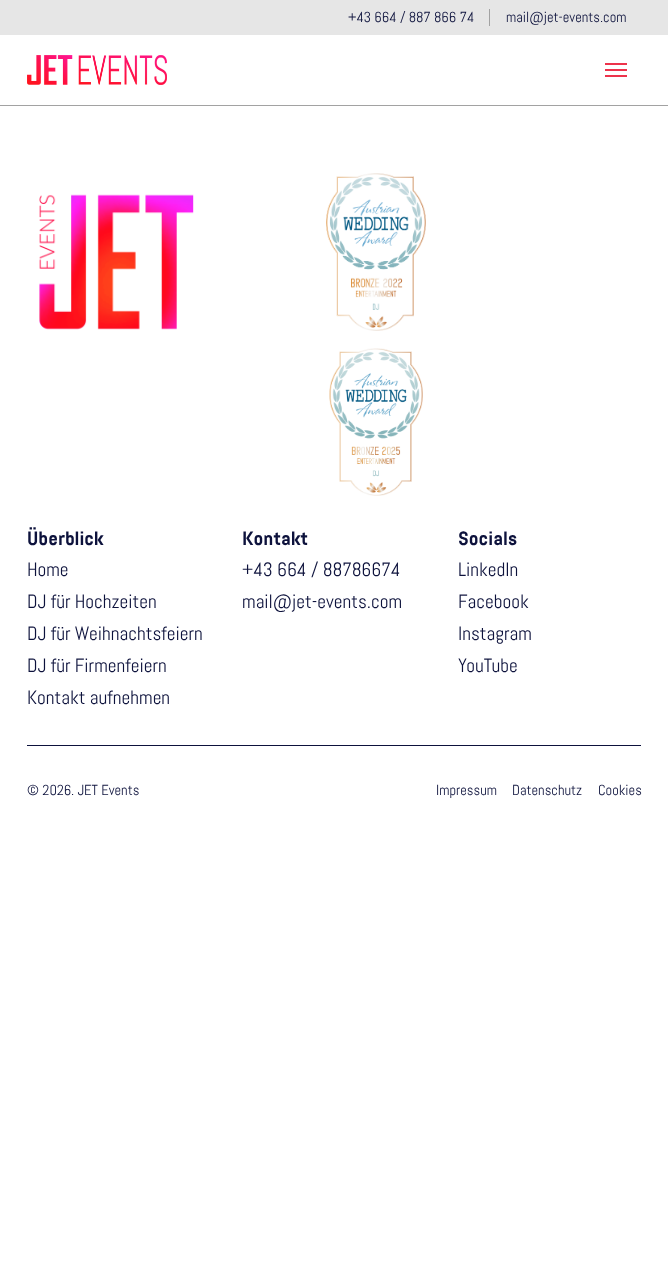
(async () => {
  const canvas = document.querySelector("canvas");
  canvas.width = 668;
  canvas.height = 1279;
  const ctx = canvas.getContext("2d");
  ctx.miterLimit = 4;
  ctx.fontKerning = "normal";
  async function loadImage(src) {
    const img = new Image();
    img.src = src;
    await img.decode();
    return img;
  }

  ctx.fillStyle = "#ffffff";
  ctx.fillRect(0, 0, 668, 1279);
  for (const [x, y, w, h, color] of [
    [0, 0, 668, 35, "#e6e6e6"],
    [489, 9, 1, 17, "#a2a2a2"],
    [0, 105, 668, 1, "#a2a2a2"],
  ]) {
    ctx.fillStyle = color;
    ctx.fillRect(x, y, w, h);
  }
  ctx.drawImage(await loadImage("img/1.png"), 27, 55, 140, 30);
  for (const [x, y, w, h, color] of [
    [605, 63, 22, 2, "#ed334b"],
    [605, 69, 22, 2, "#ed334b"],
    [605, 75, 22, 2, "#ed334b"],
  ]) {
    ctx.fillStyle = color;
    ctx.fillRect(x, y, w, h);
  }
  ctx.drawImage(await loadImage("img/2.png"), 39, 194, 155, 136);
  ctx.drawImage(await loadImage("img/3.png"), 326, 173, 100, 158);
  ctx.drawImage(await loadImage("img/4.png"), 329, 348, 94, 148);
  ctx.fillStyle = "#0d123c";
  ctx.fillRect(27, 745, 614, 1);
  ctx.font = "14.5px Abel";
  ctx.fillText("+43 664 / 887 866 74", 348, 22);
  ctx.fillText("mail@jet-events.com", 506, 22);
  ctx.font = "bold 19.25px Abel";
  ctx.fillText("Überblick", 27, 545);
  ctx.font = "19.25px Abel";
  for (const [text, x, y] of [
    ["Home", 27, 576],
    ["DJ für Hochzeiten", 27, 608],
    ["DJ für Weihnachtsfeiern", 27, 640],
    ["DJ für Firmenfeiern", 27, 672],
    ["Kontakt aufnehmen", 27, 704],
  ]) {
    ctx.fillText(text, x, y);
  }
  ctx.font = "bold 19.25px Abel";
  ctx.fillText("Kontakt", 242, 545);
  ctx.font = "19.25px Abel";
  ctx.fillText("+43 664 / 88786674", 242, 576);
  ctx.fillText("mail@jet-events.com", 242, 608);
  ctx.font = "bold 19.25px Abel";
  ctx.fillText("Socials", 458, 545);
  ctx.font = "19.25px Abel";
  for (const [text, x, y] of [
    ["LinkedIn", 458, 576],
    ["Facebook", 458, 608],
    ["Instagram", 458, 640],
    ["YouTube", 458, 672],
  ]) {
    ctx.fillText(text, x, y);
  }
  ctx.font = "14.5px Abel";
  for (const [text, x, y] of [
    ["© 2026. JET Events", 27, 795],
    ["Impressum", 436, 795],
    ["Datenschutz", 512, 795],
    ["Cookies", 598, 795],
  ]) {
    ctx.fillText(text, x, y);
  }
})();
